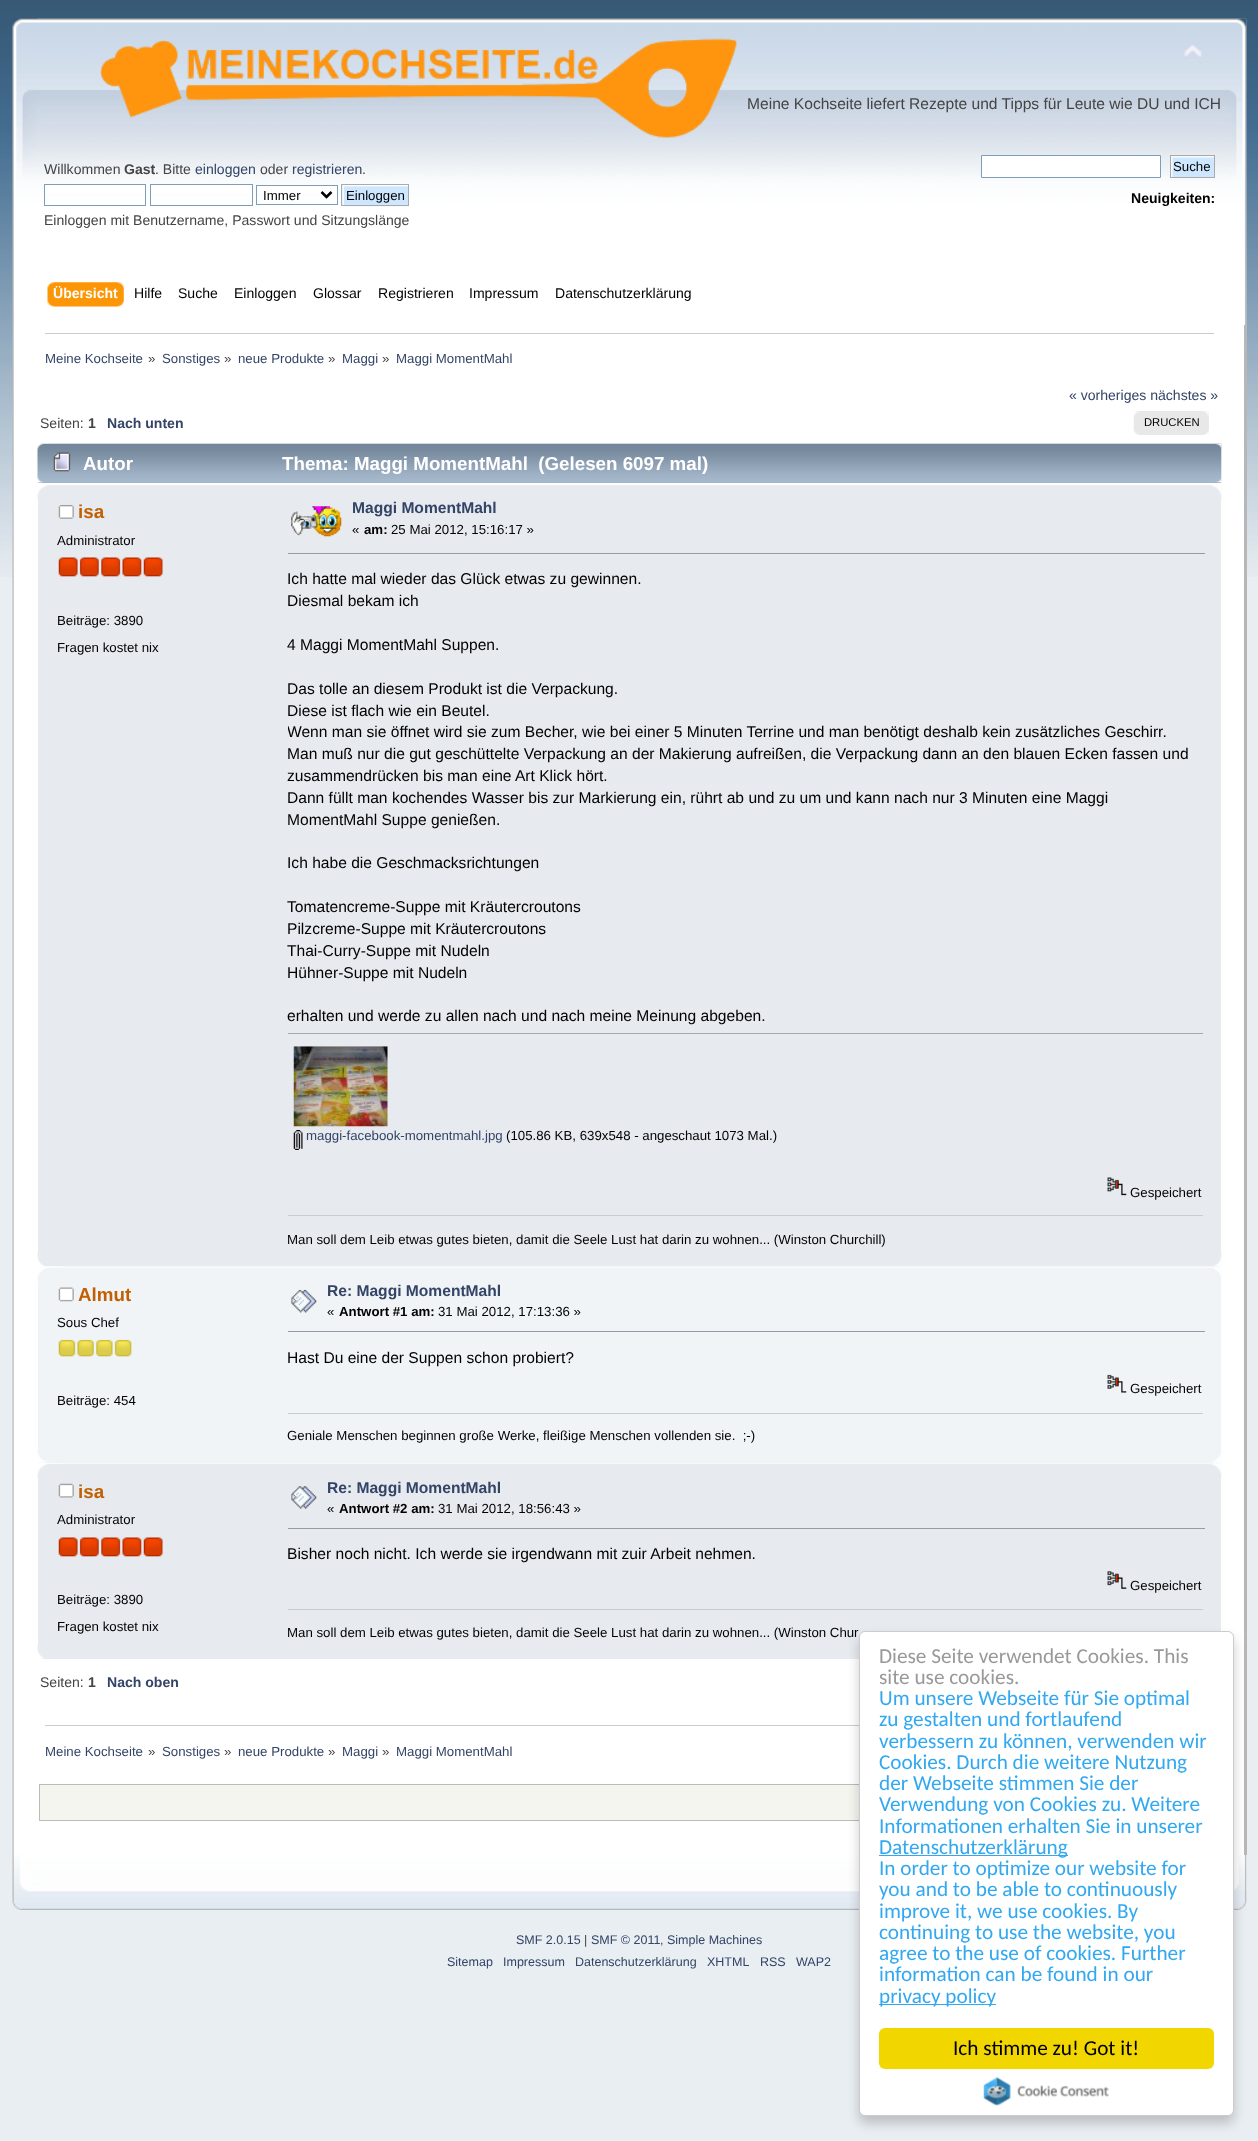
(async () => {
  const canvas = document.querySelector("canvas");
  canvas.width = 1258;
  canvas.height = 2141;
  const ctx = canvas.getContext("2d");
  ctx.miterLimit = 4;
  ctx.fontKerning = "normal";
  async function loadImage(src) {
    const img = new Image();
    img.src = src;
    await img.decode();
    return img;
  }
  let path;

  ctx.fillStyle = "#e9eef2";
  ctx.fillRect(0, 0, 1258, 2141);
  ctx.drawImage(await loadImage("img/1.png"), 0, 0, 1258, 577);
  ctx.drawImage(await loadImage("img/2.png"), 12, 18, 1235, 307);
  ctx.drawImage(await loadImage("img/3.png"), 37, 18, 1210, 307);
  ctx.drawImage(await loadImage("img/4.png"), 100, 38, 637, 100);
  ctx.drawImage(await loadImage("img/5.png"), 1184, 44, 18, 15);
  ctx.fillStyle = "#ffffff";
  ctx.fillRect(45, 185, 100, 9);
  ctx.strokeStyle = "#7f9db9";
  ctx.strokeRect(44.5, 184.5, 101, 21);
  ctx.fillRect(151, 185, 101, 9);
  ctx.strokeRect(150.5, 184.5, 102, 21);
  ctx.fillRect(257, 186, 80, 8);
  ctx.strokeRect(256.5, 185.5, 81, 19);
  path = new Path2D("M321.5 192L326.5 197L331.5 192");
  ctx.strokeStyle = "#000000";
  ctx.lineWidth = 2.5;
  ctx.stroke(path);
  ctx.fillStyle = "#cde7ff";
  ctx.fillRect(342, 185, 1, 20);
  ctx.drawImage(await loadImage("img/6.png"), 342, 185, 67, 22);
  ctx.strokeStyle = "#aaaaaa";
  ctx.lineWidth = 1;
  ctx.strokeRect(341.5, 184.5, 67, 21);
  ctx.fillStyle = "#ffffff";
  ctx.beginPath();
  ctx.rect(981.5, 155.5, 179, 22);
  ctx.fill();
  ctx.strokeStyle = "#7f9db9";
  ctx.stroke();
  ctx.fillStyle = "#cde7ff";
  ctx.fillRect(1171, 156, 43, 21);
  ctx.drawImage(await loadImage("img/7.png"), 1171, 156, 43, 21);
  ctx.strokeStyle = "#aaaaaa";
  ctx.strokeRect(1170.5, 155.5, 44, 22);
  ctx.drawImage(await loadImage("img/8.png"), 53, 282, 71, 25);
  ctx.drawImage(await loadImage("img/9.png"), 47, 282, 71, 25);
  ctx.drawImage(await loadImage("img/10.png"), 12, 325, 1232, 1530);
  for (const [x, y, w, h, color] of [
    [1244, 325, 3, 1530, "#b7b7b7"],
    [45, 333, 1169, 1, "#cccccc"],
    [1134, 411, 75, 24, "#e8e8e8"],
  ]) {
    ctx.fillStyle = color;
    ctx.fillRect(x, y, w, h);
  }
  ctx.drawImage(await loadImage("img/11.png"), 1133, 411, 6, 24);
  ctx.drawImage(await loadImage("img/12.png"), 1204, 411, 5, 24);
  ctx.fillStyle = "#99abbf";
  ctx.fillRect(38, 482, 1183, 1);
  ctx.drawImage(await loadImage("img/13.png"), 37, 443, 1185, 40);
  ctx.drawImage(await loadImage("img/14.png"), 49, 443, 1173, 40);
  ctx.drawImage(await loadImage("img/15.png"), 53, 452, 18, 20);
  ctx.fillStyle = "#e7eaef";
  ctx.fillRect(38, 498, 1183, 755);
  ctx.drawImage(await loadImage("img/16.png"), 37, 485, 1185, 14);
  ctx.drawImage(await loadImage("img/17.png"), 1211, 485, 11, 13);
  ctx.drawImage(await loadImage("img/18.png"), 58, 505, 16, 14);
  ctx.drawImage(await loadImage("img/19.png"), 58, 557, 20, 20);
  ctx.drawImage(await loadImage("img/20.png"), 79, 557, 20, 20);
  ctx.drawImage(await loadImage("img/21.png"), 101, 557, 20, 20);
  ctx.drawImage(await loadImage("img/22.png"), 122, 557, 20, 20);
  ctx.drawImage(await loadImage("img/23.png"), 143, 557, 20, 20);
  ctx.drawImage(await loadImage("img/24.png"), 291, 506, 51, 31);
  ctx.fillStyle = "#9999aa";
  ctx.fillRect(288, 553, 917, 1);
  ctx.fillStyle = "#aaaaaa";
  ctx.fillRect(288, 1033, 915, 1);
  ctx.drawImage(await loadImage("img/25.png"), 293, 1046, 95, 81);
  ctx.drawImage(await loadImage("img/26.png"), 293, 1130, 10, 20);
  ctx.drawImage(await loadImage("img/27.png"), 1107, 1177, 20, 19);
  ctx.fillStyle = "#cccccc";
  ctx.fillRect(288, 1215, 915, 1);
  ctx.drawImage(await loadImage("img/28.png"), 37, 1252, 1185, 15);
  ctx.drawImage(await loadImage("img/29.png"), 63, 1253, 1159, 14);
  ctx.fillStyle = "#f0f4f7";
  ctx.fillRect(38, 1281, 1183, 182);
  ctx.drawImage(await loadImage("img/30.png"), 37, 1267, 1185, 14);
  ctx.drawImage(await loadImage("img/31.png"), 1212, 1267, 9, 10);
  ctx.drawImage(await loadImage("img/32.png"), 58, 1287, 16, 15);
  ctx.drawImage(await loadImage("img/33.png"), 58, 1339, 18, 18);
  ctx.drawImage(await loadImage("img/34.png"), 77, 1339, 17, 18);
  ctx.drawImage(await loadImage("img/35.png"), 96, 1339, 17, 18);
  ctx.drawImage(await loadImage("img/36.png"), 114, 1339, 18, 18);
  ctx.drawImage(await loadImage("img/37.png"), 291, 1289, 26, 24);
  ctx.fillStyle = "#9999aa";
  ctx.fillRect(288, 1331, 917, 1);
  ctx.drawImage(await loadImage("img/38.png"), 1107, 1374, 20, 19);
  ctx.fillStyle = "#cccccc";
  ctx.fillRect(288, 1413, 915, 1);
  ctx.drawImage(await loadImage("img/39.png"), 37, 1449, 1185, 14);
  ctx.drawImage(await loadImage("img/40.png"), 1212, 1453, 9, 10);
  ctx.fillStyle = "#e7eaef";
  ctx.fillRect(38, 1477, 1183, 182);
  ctx.drawImage(await loadImage("img/41.png"), 37, 1463, 1185, 15);
  ctx.drawImage(await loadImage("img/42.png"), 63, 1463, 1159, 14);
  ctx.drawImage(await loadImage("img/43.png"), 58, 1483, 16, 15);
  ctx.drawImage(await loadImage("img/19.png"), 58, 1537, 20, 20);
  ctx.drawImage(await loadImage("img/20.png"), 79, 1537, 20, 20);
  ctx.drawImage(await loadImage("img/21.png"), 101, 1537, 20, 20);
  ctx.drawImage(await loadImage("img/22.png"), 122, 1537, 20, 20);
  ctx.drawImage(await loadImage("img/23.png"), 143, 1537, 20, 20);
  ctx.drawImage(await loadImage("img/44.png"), 291, 1486, 26, 23);
  ctx.fillStyle = "#9999aa";
  ctx.fillRect(288, 1528, 917, 1);
  ctx.drawImage(await loadImage("img/45.png"), 1107, 1571, 20, 18);
  ctx.fillStyle = "#cccccc";
  ctx.fillRect(288, 1609, 915, 1);
  ctx.drawImage(await loadImage("img/46.png"), 37, 1645, 822, 14);
  ctx.fillRect(45, 1725, 814, 1);
  ctx.fillStyle = "#f5f5f0";
  ctx.fillRect(40, 1785, 819, 35);
  ctx.strokeStyle = "#bbbbbb";
  ctx.strokeRect(39.5, 1784.5, 1180, 36);
  ctx.drawImage(await loadImage("img/47.png"), 12, 1855, 1235, 55);
  ctx.drawImage(await loadImage("img/48.png"), 1234, 1855, 13, 55);
  ctx.fillStyle = "rgba(0, 0, 0, 0.2)";
  ctx.filter = "blur(6px)";
  ctx.beginPath();
  ctx.roundRect(859, 1638, 375, 485, 6);
  ctx.fill();
  ctx.filter = "none";
  ctx.fillStyle = "#ffffff";
  ctx.beginPath();
  ctx.roundRect(859.5, 1631.5, 374, 484, 5.5);
  ctx.fill();
  ctx.strokeStyle = "#cccccc";
  ctx.stroke();
  ctx.fillStyle = "#31a8f0";
  ctx.fillRect(879, 1855, 189, 1);
  ctx.fillRect(879, 2004, 117, 1);
  ctx.fillStyle = "#f1d600";
  ctx.beginPath();
  ctx.roundRect(879, 2028, 335, 41, 6);
  ctx.fill();
  ctx.drawImage(await loadImage("img/49.png"), 983, 2077, 126, 29);
  ctx.font = "15.6px Liberation Sans";
  ctx.fillStyle = "#444444";
  ctx.fillText("Meine Kochseite liefert Rezepte und Tipps für Leute wie DU und ICH", 747, 109);
  ctx.font = "14.05px Liberation Sans";
  ctx.fillText("Willkommen", 44, 174);
  ctx.font = "bold 14.05px Liberation Sans";
  ctx.fillText("Gast", 124, 174);
  ctx.font = "14.05px Liberation Sans";
  ctx.fillText(". Bitte", 155, 174);
  ctx.fillStyle = "#334466";
  ctx.fillText("einloggen", 195, 174);
  ctx.fillStyle = "#444444";
  ctx.fillText("oder", 260, 174);
  ctx.fillStyle = "#334466";
  ctx.fillText("registrieren", 292, 174);
  ctx.fillStyle = "#444444";
  ctx.fillText(".", 362, 174);
  ctx.font = "13.25px Liberation Sans";
  ctx.fillStyle = "#000000";
  ctx.fillText("Immer", 263, 200);
  ctx.fillText("Einloggen", 346, 200);
  ctx.font = "14.05px Liberation Sans";
  ctx.fillStyle = "#444444";
  ctx.fillText("Einloggen mit Benutzername, Passwort und Sitzungslänge", 44, 225);
  ctx.font = "13.25px Liberation Sans";
  ctx.fillStyle = "#000000";
  ctx.fillText("Suche", 1173, 171);
  ctx.font = "bold 14.05px Liberation Sans";
  ctx.fillText("Neuigkeiten:", 1131, 203);
  ctx.fillStyle = "#ffffff";
  ctx.fillText("Übersicht", 53, 298);
  ctx.font = "14.05px Liberation Sans";
  ctx.fillStyle = "#000000";
  for (const [text, x, y] of [
    ["Hilfe", 134, 298],
    ["Suche", 178, 298],
    ["Einloggen", 234, 298],
    ["Glossar", 313, 298],
    ["Registrieren", 378, 298],
    ["Impressum", 469, 298],
    ["Datenschutzerklärung", 555, 298],
  ]) {
    ctx.fillText(text, x, y);
  }
  ctx.font = "13.25px Liberation Sans";
  ctx.fillStyle = "#334466";
  ctx.fillText("Meine Kochseite", 45, 363);
  ctx.fillStyle = "#444444";
  ctx.fillText("»", 148, 363);
  ctx.fillStyle = "#334466";
  ctx.fillText("Sonstiges", 162, 363);
  ctx.fillStyle = "#444444";
  ctx.fillText("»", 224, 363);
  ctx.fillStyle = "#334466";
  ctx.fillText("neue Produkte", 238, 363);
  ctx.fillStyle = "#444444";
  ctx.fillText("»", 328, 363);
  ctx.fillStyle = "#334466";
  ctx.fillText("Maggi", 342, 363);
  ctx.fillStyle = "#444444";
  ctx.fillText("»", 382, 363);
  ctx.fillStyle = "#334466";
  ctx.fillText("Maggi MomentMahl", 396, 363);
  ctx.font = "14.05px Liberation Sans";
  ctx.fillText("« vorheriges nächstes »", 1069, 400);
  ctx.fillStyle = "#444444";
  ctx.fillText("Seiten:", 40, 428);
  ctx.font = "bold 14.05px Liberation Sans";
  ctx.fillText("1", 88, 428);
  ctx.fillStyle = "#334466";
  ctx.fillText("Nach unten", 107, 428);
  ctx.font = "11.25px Liberation Sans";
  ctx.fillStyle = "#000000";
  ctx.fillText("DRUCKEN", 1144, 426);
  ctx.font = "bold 18.75px Liberation Sans";
  ctx.fillStyle = "#ffffff";
  ctx.fillText("Autor", 83, 470);
  ctx.fillText("Thema: Maggi MomentMahl  (Gelesen 6097 mal)", 282, 470);
  ctx.fillStyle = "#c06002";
  ctx.fillText("isa", 78, 518);
  ctx.font = "13.25px Liberation Sans";
  ctx.fillStyle = "#000000";
  for (const [text, x, y] of [
    ["Administrator", 57, 545],
    ["Beiträge: 3890", 57, 625],
    ["Fragen kostet nix", 57, 652],
  ]) {
    ctx.fillText(text, x, y);
  }
  ctx.font = "bold 15.6px Liberation Sans";
  ctx.fillStyle = "#334466";
  ctx.fillText("Maggi MomentMahl", 352, 513);
  ctx.font = "13.25px Liberation Sans";
  ctx.fillStyle = "#000000";
  ctx.fillText("«", 352, 534);
  ctx.font = "bold 13.25px Liberation Sans";
  ctx.fillText("am:", 364, 534);
  ctx.font = "13.25px Liberation Sans";
  ctx.fillText("25 Mai 2012, 15:16:17 »", 391, 534);
  ctx.font = "15.6px Liberation Sans";
  for (const [text, x, y] of [
    ["Ich hatte mal wieder das Glück etwas zu gewinnen.", 287, 584],
    ["Diesmal bekam ich", 287, 606],
    ["4 Maggi MomentMahl Suppen.", 287, 650],
    ["Das tolle an diesem Produkt ist die Verpackung.", 287, 694],
    ["Diese ist flach wie ein Beutel.", 287, 716],
  ]) {
    ctx.fillText(text, x, y);
  }
  ctx.save();
  ctx.beginPath();
  ctx.rect(288, 551, 933, 482);
  ctx.clip();
  ctx.fillText("Wenn man sie öffnet wird sie zum Becher, wie bei einer 5 Minuten Terrine und man benötigt deshalb kein zusätzliches Geschirr.", 287, 737);
  ctx.restore();
  for (const [text, x, y] of [
    ["Man muß nur die gut geschüttelte Verpackung an der Makierung aufreißen, die Verpackung dann an den blauen Ecken fassen und", 287, 759],
    ["zusammendrücken bis man eine Art Klick hört.", 287, 781],
    ["Dann füllt man kochendes Wasser bis zur Markierung ein, rührt ab und zu um und kann nach nur 3 Minuten eine Maggi", 287, 803],
    ["MomentMahl Suppe genießen.", 287, 825],
    ["Ich habe die Geschmacksrichtungen", 287, 868],
    ["Tomatencreme-Suppe mit Kräutercroutons", 287, 912],
    ["Pilzcreme-Suppe mit Kräutercroutons", 287, 934],
    ["Thai-Curry-Suppe mit Nudeln", 287, 956],
    ["Hühner-Suppe mit Nudeln", 287, 978],
    ["erhalten und werde zu allen nach und nach meine Meinung abgeben.", 287, 1021],
  ]) {
    ctx.fillText(text, x, y);
  }
  ctx.font = "13.25px Liberation Sans";
  ctx.fillStyle = "#334466";
  ctx.fillText("maggi-facebook-momentmahl.jpg", 306, 1140);
  ctx.fillStyle = "#000000";
  for (const [text, x, y] of [
    ["(105.86 KB, 639x548 - angeschaut 1073 Mal.)", 506, 1140],
    ["Gespeichert", 1130, 1197],
    ["Man soll dem Leib etwas gutes bieten, damit die Seele Lust hat darin zu wohnen... (Winston Churchill)", 287, 1244],
  ]) {
    ctx.fillText(text, x, y);
  }
  ctx.font = "bold 18.75px Liberation Sans";
  ctx.fillStyle = "#c06002";
  ctx.fillText("Almut", 78, 1301);
  ctx.font = "13.25px Liberation Sans";
  ctx.fillStyle = "#000000";
  ctx.fillText("Sous Chef", 57, 1327);
  ctx.fillText("Beiträge: 454", 57, 1405);
  ctx.font = "bold 15.6px Liberation Sans";
  ctx.fillStyle = "#334466";
  ctx.fillText("Re: Maggi MomentMahl", 327, 1296);
  ctx.font = "13.25px Liberation Sans";
  ctx.fillStyle = "#000000";
  ctx.fillText("«", 327, 1316);
  ctx.font = "bold 13.25px Liberation Sans";
  ctx.fillText("Antwort #1 am:", 339, 1316);
  ctx.font = "13.25px Liberation Sans";
  ctx.fillText("31 Mai 2012, 17:13:36 »", 438, 1316);
  ctx.font = "15.6px Liberation Sans";
  ctx.fillText("Hast Du eine der Suppen schon probiert?", 287, 1363);
  ctx.font = "13.25px Liberation Sans";
  ctx.fillText("Gespeichert", 1130, 1393);
  ctx.fillText("Geniale Menschen beginnen große Werke, fleißige Menschen vollenden sie.  ;-)", 287, 1440);
  ctx.font = "bold 18.75px Liberation Sans";
  ctx.fillStyle = "#c06002";
  ctx.fillText("isa", 78, 1498);
  ctx.font = "13.25px Liberation Sans";
  ctx.fillStyle = "#000000";
  for (const [text, x, y] of [
    ["Administrator", 57, 1524],
    ["Beiträge: 3890", 57, 1604],
    ["Fragen kostet nix", 57, 1631],
  ]) {
    ctx.fillText(text, x, y);
  }
  ctx.font = "bold 15.6px Liberation Sans";
  ctx.fillStyle = "#334466";
  ctx.fillText("Re: Maggi MomentMahl", 327, 1493);
  ctx.font = "13.25px Liberation Sans";
  ctx.fillStyle = "#000000";
  ctx.fillText("«", 327, 1513);
  ctx.font = "bold 13.25px Liberation Sans";
  ctx.fillText("Antwort #2 am:", 339, 1513);
  ctx.font = "13.25px Liberation Sans";
  ctx.fillText("31 Mai 2012, 18:56:43 »", 438, 1513);
  ctx.font = "15.6px Liberation Sans";
  ctx.fillText("Bisher noch nicht. Ich werde sie irgendwann mit zuir Arbeit nehmen.", 287, 1559);
  ctx.font = "13.25px Liberation Sans";
  ctx.fillText("Gespeichert", 1130, 1590);
  ctx.fillText("Man soll dem Leib etwas gutes bieten, damit die Seele Lust hat darin zu wohnen... (Winston Chur", 287, 1637);
  ctx.font = "14.05px Liberation Sans";
  ctx.fillStyle = "#444444";
  ctx.fillText("Seiten:", 40, 1687);
  ctx.font = "bold 14.05px Liberation Sans";
  ctx.fillText("1", 88, 1687);
  ctx.fillStyle = "#334466";
  ctx.fillText("Nach oben", 107, 1687);
  ctx.font = "13.25px Liberation Sans";
  ctx.fillText("Meine Kochseite", 45, 1756);
  ctx.fillStyle = "#444444";
  ctx.fillText("»", 148, 1756);
  ctx.fillStyle = "#334466";
  ctx.fillText("Sonstiges", 162, 1756);
  ctx.fillStyle = "#444444";
  ctx.fillText("»", 224, 1756);
  ctx.fillStyle = "#334466";
  ctx.fillText("neue Produkte", 238, 1756);
  ctx.fillStyle = "#444444";
  ctx.fillText("»", 328, 1756);
  ctx.fillStyle = "#334466";
  ctx.fillText("Maggi", 342, 1756);
  ctx.fillStyle = "#444444";
  ctx.fillText("»", 382, 1756);
  ctx.fillStyle = "#334466";
  ctx.fillText("Maggi MomentMahl", 396, 1756);
  ctx.font = "12.5px Liberation Sans";
  ctx.fillText("SMF 2.0.15", 516, 1944);
  ctx.fillStyle = "#444444";
  ctx.fillText("|", 584, 1944);
  ctx.fillStyle = "#334466";
  ctx.fillText("SMF © 2011", 591, 1944);
  ctx.fillStyle = "#444444";
  ctx.fillText(",", 660, 1944);
  ctx.fillStyle = "#334466";
  for (const [text, x, y] of [
    ["Simple Machines", 667, 1944],
    ["Sitemap", 447, 1966],
    ["Impressum", 503, 1966],
    ["Datenschutzerklärung", 575, 1966],
    ["XHTML", 707, 1966],
    ["RSS", 760, 1966],
    ["WAP2", 796, 1966],
  ]) {
    ctx.fillText(text, x, y);
  }
  ctx.font = "21.25px Carlito";
  ctx.fillStyle = "#999999";
  ctx.fillText("Diese Seite verwendet Cookies. This", 879, 1663);
  ctx.fillText("site use cookies.", 879, 1684);
  ctx.fillStyle = "#31a8f0";
  for (const [text, x, y] of [
    ["Um unsere Webseite für Sie optimal", 879, 1705],
    ["zu gestalten und fortlaufend", 879, 1726],
    ["verbessern zu können, verwenden wir", 879, 1748],
    ["Cookies. Durch die weitere Nutzung", 879, 1769],
    ["der Webseite stimmen Sie der", 879, 1790],
    ["Verwendung von Cookies zu. Weitere", 879, 1811],
    ["Informationen erhalten Sie in unserer", 879, 1833],
    ["Datenschutzerklärung", 879, 1854],
    ["In order to optimize our website for", 879, 1875],
    ["you and to be able to continuously", 879, 1896],
    ["improve it, we use cookies. By", 879, 1918],
    ["continuing to use the website, you", 879, 1939],
    ["agree to the use of cookies. Further", 879, 1960],
    ["information can be found in our", 879, 1981],
    ["privacy policy", 879, 2003],
  ]) {
    ctx.fillText(text, x, y);
  }
  ctx.fillStyle = "#000000";
  ctx.fillText("Ich stimme zu! Got it!", 953, 2055);
})();
